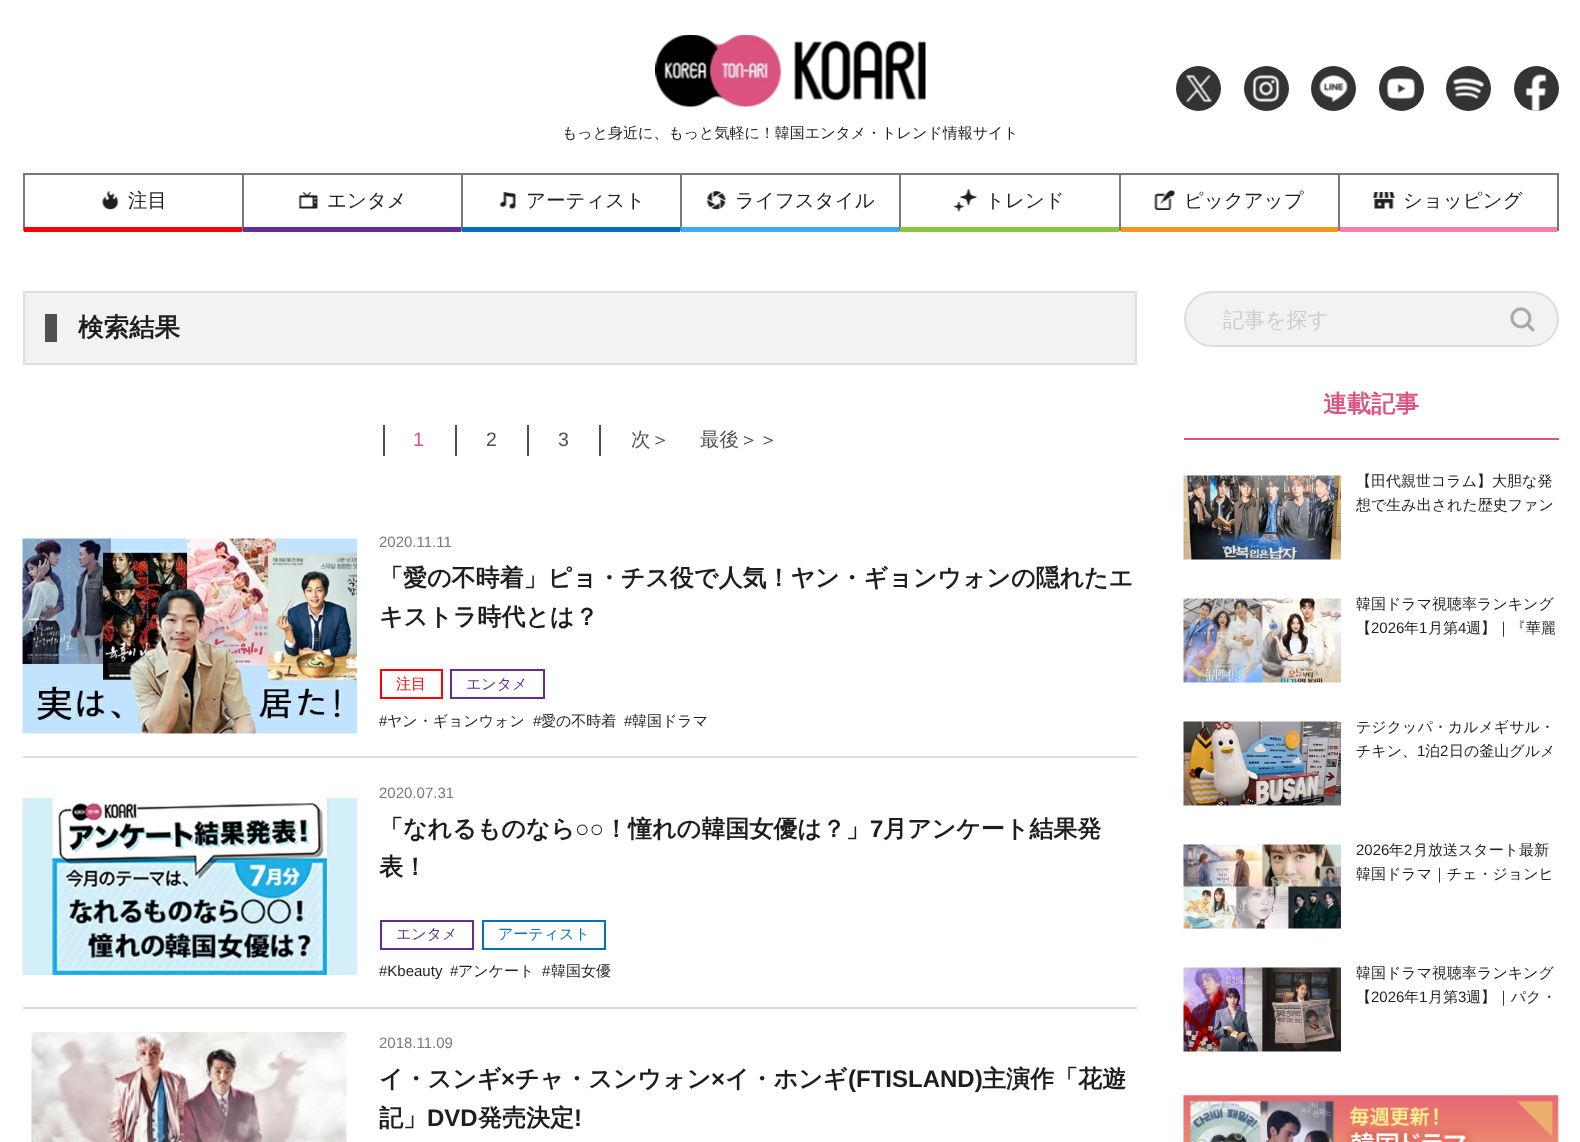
(async () => {
  const canvas = document.querySelector("canvas");
  canvas.width = 1580;
  canvas.height = 1142;
  const ctx = canvas.getContext("2d");
  ctx.miterLimit = 4;
  ctx.fontKerning = "normal";
  async function loadImage(src) {
    const img = new Image();
    img.src = src;
    await img.decode();
    return img;
  }

  ctx.fillStyle = "#ffffff";
  ctx.fillRect(0, 0, 1580, 1142);
  ctx.fillStyle = "#333333";
  ctx.beginPath();
  ctx.arc(1198.5, 88.5, 22.5, 0, Math.PI * 2);
  ctx.fill();
  ctx.drawImage(await loadImage("img/1.png"), 1185, 74, 27, 29);
  ctx.beginPath();
  ctx.arc(1266.5, 88.5, 22.5, 0, Math.PI * 2);
  ctx.fill();
  ctx.drawImage(await loadImage("img/2.png"), 1252, 75, 28, 27);
  ctx.beginPath();
  ctx.arc(1333.5, 88.5, 22.5, 0, Math.PI * 2);
  ctx.fill();
  ctx.drawImage(await loadImage("img/3.png"), 1319, 75, 29, 27);
  ctx.beginPath();
  ctx.arc(1401.5, 88.5, 22.5, 0, Math.PI * 2);
  ctx.fill();
  ctx.drawImage(await loadImage("img/4.png"), 1387, 78, 28, 21);
  ctx.beginPath();
  ctx.arc(1468.5, 88.5, 22.5, 0, Math.PI * 2);
  ctx.fill();
  ctx.drawImage(await loadImage("img/5.png"), 1453, 78, 31, 21);
  ctx.beginPath();
  ctx.arc(1536.5, 88.5, 22.5, 0, Math.PI * 2);
  ctx.fill();
  ctx.drawImage(await loadImage("img/6.png"), 1525, 74, 22, 37);
  ctx.drawImage(await loadImage("img/7.png"), 655, 35, 271, 72);
  for (const [x, y, w, h, color] of [
    [23, 173, 220, 2, "#787878"],
    [242, 173, 2, 58, "#787878"],
    [23, 173, 2, 58, "#787878"],
    [24, 227, 218, 5, "#ff0000"],
  ]) {
    ctx.fillStyle = color;
    ctx.fillRect(x, y, w, h);
  }
  ctx.drawImage(await loadImage("img/8.png"), 102, 191, 17, 19);
  for (const [x, y, w, h, color] of [
    [243, 173, 219, 2, "#787878"],
    [461, 173, 2, 58, "#787878"],
    [243, 227, 218, 5, "#662d91"],
  ]) {
    ctx.fillStyle = color;
    ctx.fillRect(x, y, w, h);
  }
  ctx.drawImage(await loadImage("img/9.png"), 298, 192, 20, 17);
  for (const [x, y, w, h, color] of [
    [462, 173, 219, 2, "#787878"],
    [680, 173, 2, 58, "#787878"],
    [462, 227, 218, 5, "#0071bc"],
  ]) {
    ctx.fillStyle = color;
    ctx.fillRect(x, y, w, h);
  }
  ctx.drawImage(await loadImage("img/10.png"), 499, 192, 17, 17);
  for (const [x, y, w, h, color] of [
    [681, 173, 219, 2, "#787878"],
    [899, 173, 2, 58, "#787878"],
    [681, 227, 218, 5, "#3fa9f5"],
  ]) {
    ctx.fillStyle = color;
    ctx.fillRect(x, y, w, h);
  }
  ctx.drawImage(await loadImage("img/11.png"), 706, 191, 20, 19);
  for (const [x, y, w, h, color] of [
    [900, 173, 659, 2, "#787878"],
    [1119, 173, 2, 58, "#787878"],
    [900, 227, 219, 5, "#8cc63f"],
  ]) {
    ctx.fillStyle = color;
    ctx.fillRect(x, y, w, h);
  }
  ctx.drawImage(await loadImage("img/12.png"), 953, 189, 24, 23);
  ctx.fillStyle = "#787878";
  ctx.fillRect(1338, 173, 2, 58);
  ctx.fillStyle = "#f7931e";
  ctx.fillRect(1121, 227, 217, 5);
  ctx.drawImage(await loadImage("img/13.png"), 1154, 190, 21, 20);
  ctx.fillStyle = "#787878";
  ctx.fillRect(1557, 173, 2, 58);
  ctx.fillStyle = "#ff7bac";
  ctx.fillRect(1340, 227, 217, 5);
  ctx.drawImage(await loadImage("img/14.png"), 1372, 192, 23, 17);
  ctx.fillStyle = "#f2f2f2";
  ctx.beginPath();
  ctx.rect(24, 292, 1112, 72);
  ctx.fill();
  ctx.strokeStyle = "#dddddd";
  ctx.lineWidth = 2;
  ctx.stroke();
  for (const [x, y, w, h, color] of [
    [45, 314, 12, 28, "#505050"],
    [383, 425, 2, 31, "#505050"],
    [455, 425, 2, 31, "#505050"],
    [527, 425, 2, 31, "#505050"],
    [599, 425, 2, 31, "#505050"],
    [23, 756, 1114, 2, "#dddddd"],
  ]) {
    ctx.fillStyle = color;
    ctx.fillRect(x, y, w, h);
  }
  ctx.drawImage(await loadImage("img/15.png"), 22, 538, 335, 196);
  ctx.strokeStyle = "#ff0000";
  ctx.strokeRect(381, 670, 61, 28);
  ctx.strokeStyle = "#662d91";
  ctx.strokeRect(451, 670, 93, 28);
  ctx.fillRect(23, 1007, 1114, 2);
  ctx.drawImage(await loadImage("img/16.png"), 22, 798, 335, 177);
  ctx.strokeRect(381, 921, 92, 28);
  ctx.strokeStyle = "#0071bc";
  ctx.strokeRect(483, 921, 122, 28);
  ctx.drawImage(await loadImage("img/17.png"), 31, 1032, 316, 110);
  ctx.fillStyle = "#f2f2f2";
  ctx.beginPath();
  ctx.roundRect(1185, 292, 373, 54, 27);
  ctx.fill();
  ctx.strokeStyle = "#dddddd";
  ctx.stroke();
  ctx.drawImage(await loadImage("img/18.png"), 1510, 307, 25, 25);
  ctx.fillStyle = "#dc5480";
  ctx.fillRect(1184, 438, 375, 2);
  ctx.drawImage(await loadImage("img/19.png"), 1183, 475, 158, 85);
  ctx.drawImage(await loadImage("img/20.png"), 1183, 598, 158, 85);
  ctx.drawImage(await loadImage("img/21.png"), 1183, 721, 158, 85);
  ctx.drawImage(await loadImage("img/22.png"), 1183, 844, 158, 85);
  ctx.drawImage(await loadImage("img/23.png"), 1183, 967, 158, 85);
  ctx.drawImage(await loadImage("img/24.png"), 1183, 1095, 376, 47);
  ctx.font = "500 15px WenQuanYi Zen Hei";
  ctx.fillStyle = "#1e1e1e";
  ctx.fillText("もっと身近に、もっと気軽に！韓国エンタメ・トレンド情報サイト", 562, 138);
  ctx.font = "500 19.5px WenQuanYi Zen Hei";
  for (const [text, x, y] of [
    ["注目", 128, 207],
    ["エンタメ", 327, 207],
    ["アーティスト", 526, 207],
    ["ライフスタイル", 735, 207],
    ["トレンド", 985, 207],
    ["ピックアップ", 1184, 207],
    ["ショッピング", 1403, 207],
  ]) {
    ctx.fillText(text, x, y);
  }
  ctx.font = "bold 25.5px WenQuanYi Zen Hei";
  ctx.fillText("検索結果", 78, 336);
  ctx.font = "19.5px Liberation Sans";
  ctx.fillStyle = "#dc5480";
  ctx.fillText("1", 413, 446);
  ctx.fillStyle = "#505050";
  ctx.fillText("2", 486, 446);
  ctx.fillText("3", 558, 446);
  ctx.font = "500 19.5px WenQuanYi Zen Hei";
  ctx.fillText("次＞", 631, 446);
  ctx.fillText("最後＞＞", 700, 446);
  ctx.font = "15px Liberation Sans";
  ctx.fillStyle = "#787878";
  ctx.fillText("2020.11.11", 379, 547);
  ctx.font = "bold 24px WenQuanYi Zen Hei";
  ctx.fillStyle = "#1e1e1e";
  ctx.fillText("「愛の不時着」ピョ・チス役で人気！ヤン・ギョンウォンの隠れたエ", 379, 586);
  ctx.fillText("キストラ時代とは？", 379, 625);
  ctx.font = "500 15px WenQuanYi Zen Hei";
  ctx.fillStyle = "#ff0000";
  ctx.fillText("注目", 396, 689);
  ctx.fillStyle = "#662d91";
  ctx.fillText("エンタメ", 466, 689);
  ctx.font = "15px Liberation Sans";
  ctx.fillStyle = "#1e1e1e";
  ctx.fillText("#", 379, 726);
  ctx.font = "500 15px WenQuanYi Zen Hei";
  ctx.fillText("ヤン・ギョンウォン", 387, 726);
  ctx.font = "15px Liberation Sans";
  ctx.fillText("#", 533, 726);
  ctx.font = "500 15px WenQuanYi Zen Hei";
  ctx.fillText("愛の不時着", 541, 726);
  ctx.font = "15px Liberation Sans";
  ctx.fillText("#", 624, 726);
  ctx.font = "500 15px WenQuanYi Zen Hei";
  ctx.fillText("韓国ドラマ", 632, 726);
  ctx.font = "15px Liberation Sans";
  ctx.fillStyle = "#787878";
  ctx.fillText("2020.07.31", 379, 798);
  ctx.font = "bold 24px WenQuanYi Zen Hei";
  ctx.fillStyle = "#1e1e1e";
  ctx.fillText("「なれるものなら", 379, 837);
  ctx.font = "bold 24px Liberation Sans";
  ctx.fillText("○○", 575, 837);
  ctx.font = "bold 24px WenQuanYi Zen Hei";
  ctx.fillText("！憧れの韓国女優は？」", 604, 837);
  ctx.font = "bold 24px Liberation Sans";
  ctx.fillText("7", 870, 837);
  ctx.font = "bold 24px WenQuanYi Zen Hei";
  ctx.fillText("月アンケート結果発", 883, 837);
  ctx.fillText("表！", 379, 875);
  ctx.font = "500 15px WenQuanYi Zen Hei";
  ctx.fillStyle = "#662d91";
  ctx.fillText("エンタメ", 396, 939);
  ctx.fillStyle = "#0071bc";
  ctx.fillText("アーティスト", 498, 939);
  ctx.font = "15px Liberation Sans";
  ctx.fillStyle = "#1e1e1e";
  ctx.fillText("#Kbeauty", 379, 976);
  ctx.fillText("#", 450, 976);
  ctx.font = "500 15px WenQuanYi Zen Hei";
  ctx.fillText("アンケート", 458, 976);
  ctx.font = "15px Liberation Sans";
  ctx.fillText("#", 542, 976);
  ctx.font = "500 15px WenQuanYi Zen Hei";
  ctx.fillText("韓国女優", 551, 976);
  ctx.font = "15px Liberation Sans";
  ctx.fillStyle = "#787878";
  ctx.fillText("2018.11.09", 379, 1048);
  ctx.font = "bold 24px WenQuanYi Zen Hei";
  ctx.fillStyle = "#1e1e1e";
  ctx.fillText("イ・スンギ", 379, 1087);
  ctx.font = "bold 24px Liberation Sans";
  ctx.fillText("×", 501, 1087);
  ctx.font = "bold 24px WenQuanYi Zen Hei";
  ctx.fillText("チャ・スンウォン", 515, 1087);
  ctx.font = "bold 24px Liberation Sans";
  ctx.fillText("×", 711, 1087);
  ctx.font = "bold 24px WenQuanYi Zen Hei";
  ctx.fillText("イ・ホンギ", 725, 1087);
  ctx.font = "bold 24px Liberation Sans";
  ctx.fillText("(FTISLAND)", 848, 1087);
  ctx.font = "bold 24px WenQuanYi Zen Hei";
  ctx.fillText("主演作「花遊", 982, 1087);
  ctx.fillText("記」", 379, 1126);
  ctx.font = "bold 24px Liberation Sans";
  ctx.fillText("DVD", 427, 1126);
  ctx.font = "bold 24px WenQuanYi Zen Hei";
  ctx.fillText("発売決定", 478, 1126);
  ctx.font = "bold 24px Liberation Sans";
  ctx.fillText("!", 574, 1126);
  ctx.font = "500 21px WenQuanYi Zen Hei";
  ctx.fillStyle = "#cccccc";
  ctx.fillText("記事を探す", 1223, 327);
  ctx.font = "bold 24px WenQuanYi Zen Hei";
  ctx.fillStyle = "#dc5480";
  ctx.fillText("連載記事", 1323, 412);
  ctx.font = "500 15px WenQuanYi Zen Hei";
  ctx.fillStyle = "#1e1e1e";
  for (const [text, x, y] of [
    ["【田代親世コラム】大胆な発", 1356, 486],
    ["想で生み出された歴史ファン", 1356, 510],
    ["韓国ドラマ視聴率ランキング", 1356, 609],
    ["【", 1356, 633],
  ]) {
    ctx.fillText(text, x, y);
  }
  ctx.font = "15px Liberation Sans";
  ctx.fillText("2026", 1371, 633);
  ctx.font = "500 15px WenQuanYi Zen Hei";
  ctx.fillText("年", 1404, 633);
  ctx.font = "15px Liberation Sans";
  ctx.fillText("1", 1419, 633);
  ctx.font = "500 15px WenQuanYi Zen Hei";
  ctx.fillText("月第", 1428, 633);
  ctx.font = "15px Liberation Sans";
  ctx.fillText("4", 1458, 633);
  ctx.font = "500 15px WenQuanYi Zen Hei";
  for (const [text, x, y] of [
    ["週】｜『華麗", 1466, 633],
    ["テジクッパ・カルメギサル・", 1356, 732],
    ["チキン、", 1356, 756],
  ]) {
    ctx.fillText(text, x, y);
  }
  ctx.font = "15px Liberation Sans";
  ctx.fillText("1", 1417, 756);
  ctx.font = "500 15px WenQuanYi Zen Hei";
  ctx.fillText("泊", 1425, 756);
  ctx.font = "15px Liberation Sans";
  ctx.fillText("2", 1440, 756);
  ctx.font = "500 15px WenQuanYi Zen Hei";
  ctx.fillText("日の釜山グルメ", 1449, 756);
  ctx.font = "15px Liberation Sans";
  ctx.fillText("2026", 1356, 855);
  ctx.font = "500 15px WenQuanYi Zen Hei";
  ctx.fillText("年", 1389, 855);
  ctx.font = "15px Liberation Sans";
  ctx.fillText("2", 1404, 855);
  ctx.font = "500 15px WenQuanYi Zen Hei";
  for (const [text, x, y] of [
    ["月放送スタート最新", 1413, 855],
    ["韓国ドラマ｜チェ・ジョンヒ", 1356, 879],
    ["韓国ドラマ視聴率ランキング", 1356, 978],
    ["【", 1356, 1002],
  ]) {
    ctx.fillText(text, x, y);
  }
  ctx.font = "15px Liberation Sans";
  ctx.fillText("2026", 1371, 1002);
  ctx.font = "500 15px WenQuanYi Zen Hei";
  ctx.fillText("年", 1404, 1002);
  ctx.font = "15px Liberation Sans";
  ctx.fillText("1", 1419, 1002);
  ctx.font = "500 15px WenQuanYi Zen Hei";
  ctx.fillText("月第", 1428, 1002);
  ctx.font = "15px Liberation Sans";
  ctx.fillText("3", 1458, 1002);
  ctx.font = "500 15px WenQuanYi Zen Hei";
  ctx.fillText("週】｜パク・", 1466, 1002);
})();
